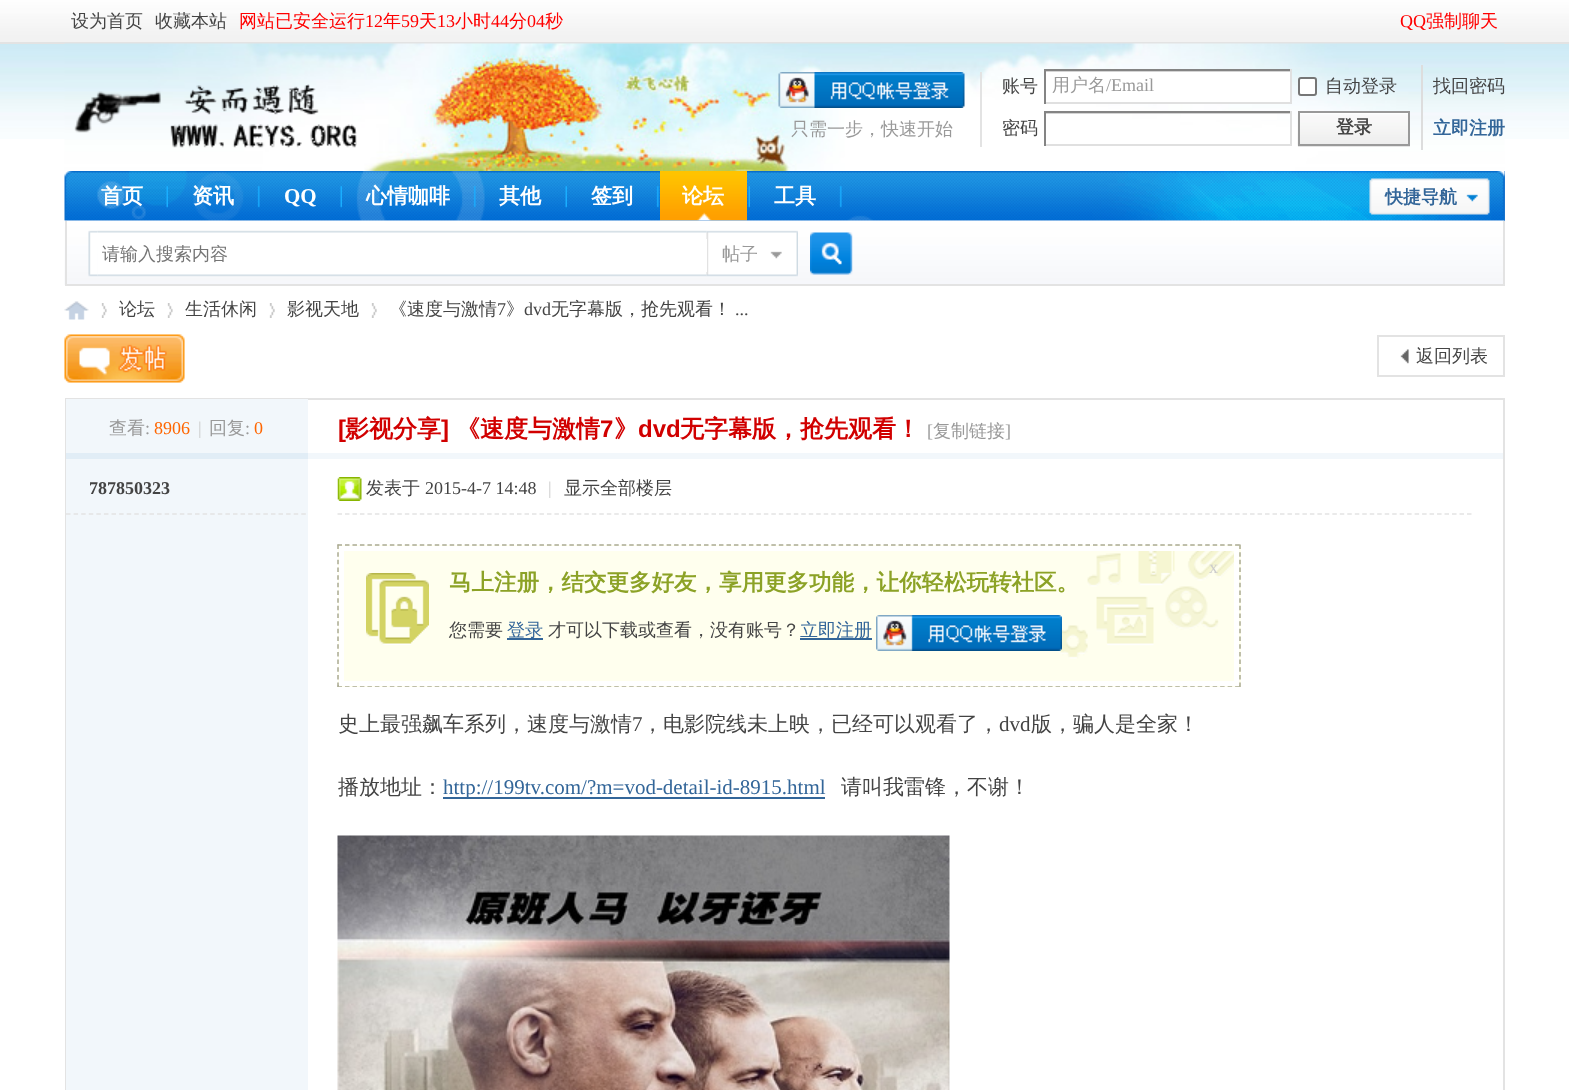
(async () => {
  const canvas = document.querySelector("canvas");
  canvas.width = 1569;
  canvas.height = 1090;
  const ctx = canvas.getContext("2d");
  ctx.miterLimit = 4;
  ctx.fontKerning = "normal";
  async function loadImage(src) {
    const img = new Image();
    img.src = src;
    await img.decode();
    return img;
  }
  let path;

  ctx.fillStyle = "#ffffff";
  ctx.fillRect(0, 0, 1569, 1090);
  ctx.drawImage(await loadImage("img/1.png"), 0, 44, 1569, 95);
  ctx.drawImage(await loadImage("img/2.png"), 0, 0, 1569, 42);
  ctx.fillStyle = "#e3e3e3";
  ctx.fillRect(0, 42, 1569, 2);
  ctx.drawImage(await loadImage("img/3.png"), 64, 43, 1441, 128);
  ctx.drawImage(await loadImage("img/4.png"), 74, 84, 283, 64);
  ctx.fillRect(980, 72, 2, 75);
  ctx.drawImage(await loadImage("img/5.png"), 778, 72, 187, 36);
  ctx.fillStyle = "#ffffff";
  ctx.fillRect(1046, 72, 244, 30);
  ctx.drawImage(await loadImage("img/6.png"), 1046, 71, 244, 1);
  for (const [x, y, w, h, color] of [
    [1044, 69, 248, 2, "#848484"],
    [1290, 69, 2, 35, "#e0e0e0"],
    [1044, 102, 248, 2, "#e0e0e0"],
    [1044, 69, 2, 35, "#848484"],
  ]) {
    ctx.fillStyle = color;
    ctx.fillRect(x, y, w, h);
  }
  ctx.fillStyle = "#ffffff";
  ctx.beginPath();
  ctx.roundRect(1299, 78, 17, 17, 2);
  ctx.fill();
  ctx.strokeStyle = "#767676";
  ctx.lineWidth = 2;
  ctx.stroke();
  ctx.fillRect(1181, 114, 96, 6);
  ctx.drawImage(await loadImage("img/6.png"), 1046, 113, 244, 1);
  for (const [x, y, w, h, color] of [
    [1044, 111, 248, 2, "#848484"],
    [1290, 111, 2, 35, "#e0e0e0"],
    [1044, 144, 248, 2, "#e0e0e0"],
    [1044, 111, 2, 35, "#848484"],
    [1421, 65, 2, 85, "#dddddd"],
    [1298, 146, 112, 1, "#e5e5e5"],
  ]) {
    ctx.fillStyle = color;
    ctx.fillRect(x, y, w, h);
  }
  ctx.drawImage(await loadImage("img/7.png"), 1297, 112, 111, 34);
  ctx.strokeStyle = "#999999";
  ctx.strokeRect(1299, 112, 110, 33);
  ctx.fillStyle = "#2b7acd";
  ctx.fillRect(65, 171, 1440, 50);
  ctx.drawImage(await loadImage("img/8.png"), 64, 171, 1441, 50);
  ctx.drawImage(await loadImage("img/9.png"), 166, 185, 2, 23);
  ctx.drawImage(await loadImage("img/10.png"), 257, 186, 3, 22);
  ctx.drawImage(await loadImage("img/11.png"), 340, 185, 2, 23);
  ctx.drawImage(await loadImage("img/12.png"), 473, 186, 3, 22);
  ctx.drawImage(await loadImage("img/11.png"), 565, 185, 2, 23);
  ctx.drawImage(await loadImage("img/10.png"), 656, 186, 3, 22);
  ctx.drawImage(await loadImage("img/13.png"), 748, 185, 2, 23);
  ctx.fillRect(660, 220, 87, 1);
  ctx.drawImage(await loadImage("img/14.png"), 660, 171, 87, 50);
  ctx.drawImage(await loadImage("img/10.png"), 839, 186, 3, 22);
  ctx.drawImage(await loadImage("img/15.png"), 1369, 178, 121, 37);
  ctx.drawImage(await loadImage("img/16.png"), 64, 220, 1441, 65);
  for (const [x, y, w, h, color] of [
    [1503, 221, 2, 64, "#e3e3e3"],
    [65, 284, 1440, 2, "#e3e3e3"],
    [65, 221, 2, 64, "#e3e3e3"],
  ]) {
    ctx.fillStyle = color;
    ctx.fillRect(x, y, w, h);
  }
  ctx.drawImage(await loadImage("img/17.png"), 88, 230, 10, 47);
  ctx.drawImage(await loadImage("img/18.png"), 97, 230, 610, 47);
  ctx.drawImage(await loadImage("img/19.png"), 706, 230, 92, 47);
  ctx.fillStyle = "#ffffff";
  ctx.fillRect(706, 239, 1, 33);
  ctx.drawImage(await loadImage("img/20.png"), 810, 232, 43, 43);
  ctx.drawImage(await loadImage("img/21.png"), 64, 301, 25, 19);
  ctx.drawImage(await loadImage("img/22.png"), 101, 303, 6, 15);
  ctx.drawImage(await loadImage("img/22.png"), 167, 303, 6, 15);
  ctx.drawImage(await loadImage("img/23.png"), 269, 303, 6, 15);
  ctx.drawImage(await loadImage("img/23.png"), 371, 303, 6, 15);
  ctx.drawImage(await loadImage("img/24.png"), 64, 334, 121, 49);
  ctx.drawImage(await loadImage("img/25.png"), 1400, 349, 9, 15);
  ctx.strokeStyle = "#e3e3e3";
  ctx.strokeRect(1378, 336, 126, 40);
  ctx.strokeRect(66, 399, 1438, 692);
  for (const [x, y, w, h, color] of [
    [66, 399, 242, 54, "#f2f7fb"],
    [66, 453, 242, 6, "#e1edf6"],
    [308, 453, 1195, 6, "#f2f7fb"],
    [66, 459, 242, 631, "#f2f7fb"],
  ]) {
    ctx.fillStyle = color;
    ctx.fillRect(x, y, w, h);
  }
  path = new Path2D("M66 514H306");
  ctx.lineWidth = 1.5;
  ctx.setLineDash([4.5, 3.09]);
  ctx.stroke(path);
  path = new Path2D("M337.5 514H1473");
  ctx.setLineDash([4.5, 2.98]);
  ctx.stroke(path);
  ctx.drawImage(await loadImage("img/26.png"), 337, 477, 25, 24);
  ctx.fillStyle = "#ffffee";
  ctx.fillRect(338, 545, 903, 142);
  ctx.drawImage(await loadImage("img/27.png"), 1057, 551, 177, 108);
  path = new Path2D("M337.5 545H1240.5");
  ctx.strokeStyle = "#aaaa92";
  ctx.stroke(path);
  path = new Path2D("M1240 544.5V687");
  ctx.setLineDash([4.5, 3.17]);
  ctx.stroke(path);
  path = new Path2D("M337.5 686H1240.5");
  ctx.setLineDash([4.5, 2.98]);
  ctx.stroke(path);
  path = new Path2D("M338 544.5V687");
  ctx.setLineDash([4.5, 3.17]);
  ctx.stroke(path);
  ctx.drawImage(await loadImage("img/28.png"), 366, 573, 63, 72);
  ctx.strokeStyle = "#ffffff";
  ctx.lineWidth = 5;
  ctx.setLineDash([]);
  ctx.strokeRect(341.5, 548.5, 895, 135);
  ctx.fillStyle = "#336699";
  ctx.fillRect(507, 638, 36, 2);
  ctx.fillRect(800, 638, 72, 2);
  ctx.drawImage(await loadImage("img/29.png"), 876, 615, 186, 36);
  ctx.fillRect(443, 797, 382, 2);
  ctx.drawImage(await loadImage("img/30.png"), 337, 835, 613, 255);
  ctx.font = "500 18px WenQuanYi Zen Hei";
  ctx.fillStyle = "#444444";
  ctx.fillText("设为首页", 71, 27);
  ctx.fillText("收藏本站", 155, 27);
  ctx.fillStyle = "#ff0000";
  ctx.fillText("网站已安全运行", 239, 27);
  ctx.font = "18px Liberation Serif";
  ctx.fillText("12", 365, 27);
  ctx.font = "500 18px WenQuanYi Zen Hei";
  ctx.fillText("年", 383, 27);
  ctx.font = "18px Liberation Serif";
  ctx.fillText("59", 401, 27);
  ctx.font = "500 18px WenQuanYi Zen Hei";
  ctx.fillText("天", 419, 27);
  ctx.font = "18px Liberation Serif";
  ctx.fillText("13", 437, 27);
  ctx.font = "500 18px WenQuanYi Zen Hei";
  ctx.fillText("小时", 455, 27);
  ctx.font = "18px Liberation Serif";
  ctx.fillText("44", 491, 27);
  ctx.font = "500 18px WenQuanYi Zen Hei";
  ctx.fillText("分", 509, 27);
  ctx.font = "18px Liberation Serif";
  ctx.fillText("04", 527, 27);
  ctx.font = "500 18px WenQuanYi Zen Hei";
  ctx.fillText("秒", 545, 27);
  ctx.font = "18px Liberation Serif";
  ctx.fillText("QQ", 1400, 27);
  ctx.font = "500 18px WenQuanYi Zen Hei";
  ctx.fillText("强制聊天", 1426, 27);
  ctx.fillStyle = "#999999";
  ctx.fillText("只需一步，快速开始", 791, 135);
  ctx.fillStyle = "#444444";
  ctx.fillText("账号", 1002, 92);
  ctx.fillStyle = "#999999";
  ctx.fillText("用户名", 1052, 91);
  ctx.font = "18px Liberation Serif";
  ctx.fillText("/Email", 1106, 91);
  ctx.font = "500 18px WenQuanYi Zen Hei";
  ctx.fillStyle = "#444444";
  for (const [text, x, y] of [
    ["自动登录", 1325, 92],
    ["找回密码", 1433, 92],
    ["密码", 1002, 134],
  ]) {
    ctx.fillText(text, x, y);
  }
  ctx.font = "bold 18px WenQuanYi Zen Hei";
  ctx.fillText("登录", 1336, 133);
  ctx.fillStyle = "#336699";
  ctx.fillText("立即注册", 1433, 134);
  ctx.font = "bold 21px WenQuanYi Zen Hei";
  ctx.fillStyle = "#ffffff";
  ctx.fillText("首页", 101, 203);
  ctx.fillText("资讯", 192, 203);
  ctx.font = "bold 21px Liberation Serif";
  ctx.fillText("QQ", 284, 203);
  ctx.font = "bold 21px WenQuanYi Zen Hei";
  for (const [text, x, y] of [
    ["心情咖啡", 366, 203],
    ["其他", 499, 203],
    ["签到", 591, 203],
    ["论坛", 682, 203],
    ["工具", 774, 203],
  ]) {
    ctx.fillText(text, x, y);
  }
  ctx.font = "bold 18px WenQuanYi Zen Hei";
  ctx.fillStyle = "#336699";
  ctx.fillText("快捷导航", 1385, 203);
  ctx.font = "500 18px WenQuanYi Zen Hei";
  ctx.fillStyle = "#757575";
  ctx.fillText("请输入搜索内容", 102, 260);
  ctx.fillStyle = "#999999";
  ctx.fillText("帖子", 722, 260);
  ctx.fillStyle = "#444444";
  for (const [text, x, y] of [
    ["论坛", 119, 315],
    ["生活休闲", 185, 315],
    ["影视天地", 287, 315],
    ["《速度与激情", 389, 315],
  ]) {
    ctx.fillText(text, x, y);
  }
  ctx.font = "18px Liberation Serif";
  ctx.fillText("7", 497, 315);
  ctx.font = "500 18px WenQuanYi Zen Hei";
  ctx.fillText("》", 506, 315);
  ctx.font = "18px Liberation Serif";
  ctx.fillText("dvd", 524, 315);
  ctx.font = "500 18px WenQuanYi Zen Hei";
  ctx.fillText("无字幕版，抢先观看！", 551, 315);
  ctx.font = "18px Liberation Serif";
  ctx.fillText("...", 735, 315);
  ctx.font = "500 18px WenQuanYi Zen Hei";
  ctx.fillText("返回列表", 1416, 362);
  ctx.fillStyle = "#999999";
  ctx.fillText("查看", 109, 434);
  ctx.font = "18px Liberation Serif";
  ctx.fillText(":", 145, 434);
  ctx.fillStyle = "#ff6600";
  ctx.fillText("8906", 154, 434);
  ctx.fillStyle = "#cccccc";
  ctx.fillText("|", 198, 434);
  ctx.font = "500 18px WenQuanYi Zen Hei";
  ctx.fillStyle = "#999999";
  ctx.fillText("回复", 209, 434);
  ctx.font = "18px Liberation Serif";
  ctx.fillText(":", 245, 434);
  ctx.fillStyle = "#ff6600";
  ctx.fillText("0", 254, 434);
  ctx.font = "bold 24px Liberation Sans";
  ctx.fillStyle = "#d10000";
  ctx.fillText("[", 338, 437);
  ctx.font = "bold 24px WenQuanYi Zen Hei";
  ctx.fillText("影视分享", 345, 437);
  ctx.font = "bold 24px Liberation Sans";
  ctx.fillText("]", 441, 437);
  ctx.font = "bold 24px WenQuanYi Zen Hei";
  ctx.fillText("《速度与激情", 456, 437);
  ctx.font = "bold 24px Liberation Sans";
  ctx.fillText("7", 600, 437);
  ctx.font = "bold 24px WenQuanYi Zen Hei";
  ctx.fillText("》", 614, 437);
  ctx.font = "bold 24px Liberation Sans";
  ctx.fillText("dvd", 638, 437);
  ctx.font = "bold 24px WenQuanYi Zen Hei";
  ctx.fillText("无字幕版，抢先观看！", 680, 437);
  ctx.font = "18px Liberation Serif";
  ctx.fillStyle = "#999999";
  ctx.fillText("[", 927, 437);
  ctx.font = "500 18px WenQuanYi Zen Hei";
  ctx.fillText("复制链接", 933, 437);
  ctx.font = "18px Liberation Serif";
  ctx.fillText("]", 1005, 437);
  ctx.font = "bold 18px Liberation Serif";
  ctx.fillStyle = "#444444";
  ctx.fillText("787850323", 89, 494);
  ctx.font = "500 18px WenQuanYi Zen Hei";
  ctx.fillText("发表于", 366, 494);
  ctx.font = "18px Liberation Serif";
  ctx.fillText("2015-4-7 14:48", 425, 494);
  ctx.fillStyle = "#cccccc";
  ctx.fillText("|", 548, 494);
  ctx.font = "500 18px WenQuanYi Zen Hei";
  ctx.fillStyle = "#444444";
  ctx.fillText("显示全部楼层", 564, 494);
  ctx.font = "18px Liberation Serif";
  ctx.fillStyle = "#cccccc";
  ctx.fillText("x", 1209, 573);
  ctx.font = "bold 22.5px WenQuanYi Zen Hei";
  ctx.fillStyle = "#8ca226";
  ctx.fillText("马上注册，结交更多好友，享用更多功能，让你轻松玩转社区。", 449, 590);
  ctx.font = "500 18px WenQuanYi Zen Hei";
  ctx.fillStyle = "#444444";
  ctx.fillText("您需要", 449, 636);
  ctx.fillStyle = "#336699";
  ctx.fillText("登录", 507, 636);
  ctx.fillStyle = "#444444";
  ctx.fillText("才可以下载或查看，没有账号？", 548, 636);
  ctx.fillStyle = "#336699";
  ctx.fillText("立即注册", 800, 636);
  ctx.font = "500 21px WenQuanYi Zen Hei";
  ctx.fillStyle = "#444444";
  ctx.fillText("史上最强飙车系列，速度与激情", 338, 731);
  ctx.font = "21px Liberation Serif";
  ctx.fillText("7", 632, 731);
  ctx.font = "500 21px WenQuanYi Zen Hei";
  ctx.fillText("，电影院线未上映，已经可以观看了，", 642, 731);
  ctx.font = "21px Liberation Serif";
  ctx.fillText("dvd", 999, 731);
  ctx.font = "500 21px WenQuanYi Zen Hei";
  ctx.fillText("版，骗人是全家！", 1031, 731);
  ctx.fillText("播放地址：", 338, 794);
  ctx.font = "21px Liberation Serif";
  ctx.fillStyle = "#336699";
  ctx.fillText("http://199tv.com/?m=vod-detail-id-8915.html", 443, 794);
  ctx.font = "500 21px WenQuanYi Zen Hei";
  ctx.fillStyle = "#444444";
  ctx.fillText("请叫我雷锋，不谢！", 841, 794);
})();
